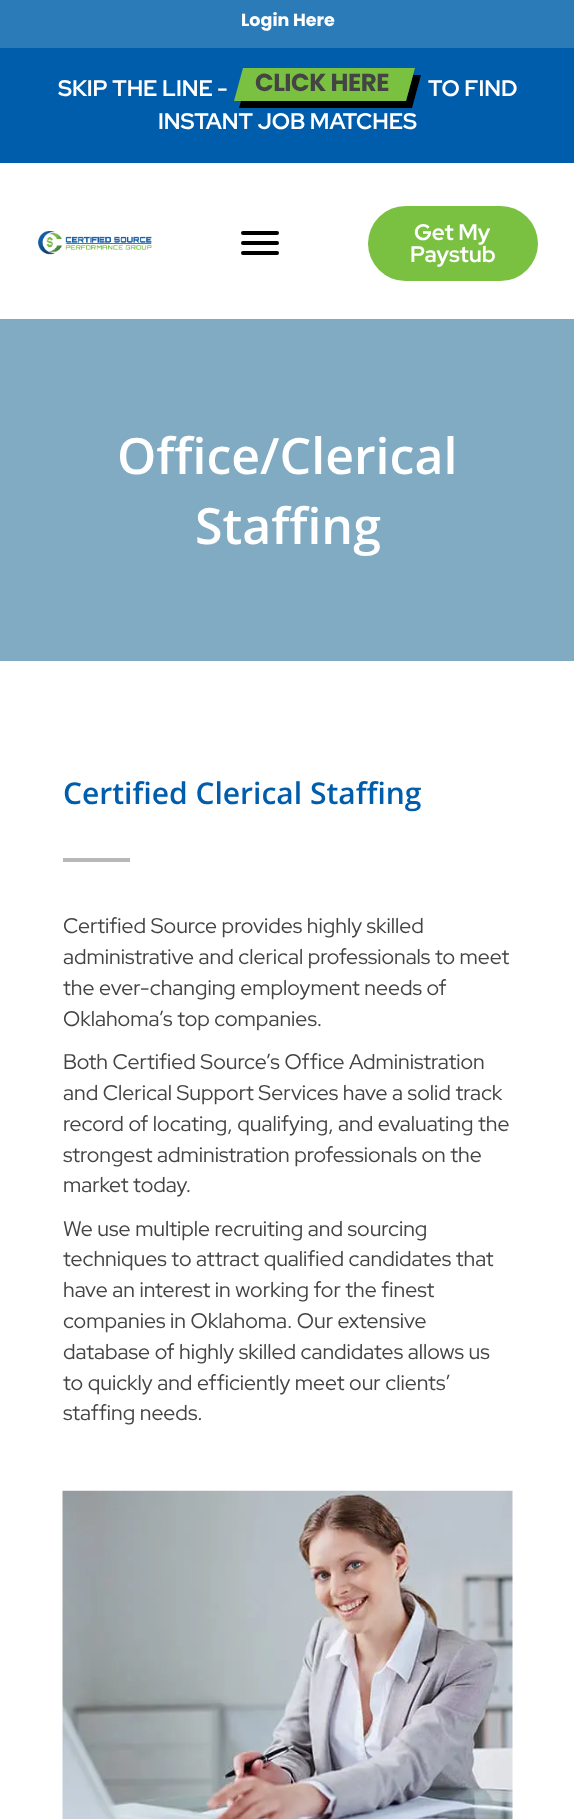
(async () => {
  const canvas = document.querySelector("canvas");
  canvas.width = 574;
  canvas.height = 1819;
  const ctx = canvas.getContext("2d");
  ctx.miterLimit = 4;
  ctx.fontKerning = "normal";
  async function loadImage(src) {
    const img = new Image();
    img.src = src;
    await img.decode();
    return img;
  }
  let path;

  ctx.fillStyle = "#ffffff";
  ctx.fillRect(0, 0, 574, 1819);
  ctx.fillStyle = "#2b7bb9";
  ctx.fillRect(0, 0, 574, 48);
  ctx.fillStyle = "#005dab";
  ctx.fillRect(0, 48, 574, 115);
  ctx.fillStyle = "#000000";
  path = new Path2D("M241 101L239 108H412L421 75H413L406 101Z");
  ctx.fill(path);
  ctx.fillStyle = "#7ac142";
  path = new Path2D("M243 68H415L406 101H234Z");
  ctx.fill(path);
  ctx.drawImage(await loadImage("img/1.png"), 38, 231, 114, 24);
  ctx.fillStyle = "#000000";
  ctx.beginPath();
  ctx.roundRect(241, 241, 38, 4, 2);
  ctx.fill();
  ctx.beginPath();
  ctx.roundRect(241, 231, 38, 4, 2);
  ctx.fill();
  ctx.beginPath();
  ctx.roundRect(241, 251, 38, 4, 2);
  ctx.fill();
  ctx.fillStyle = "#7ac142";
  ctx.beginPath();
  ctx.roundRect(368, 206, 170, 75, 37.5);
  ctx.fill();
  ctx.fillStyle = "#80abc3";
  ctx.fillRect(0, 319, 574, 342);
  ctx.fillStyle = "#b7b7b7";
  ctx.fillRect(63, 858, 67, 4);
  ctx.drawImage(await loadImage("img/2.png"), 62, 1490, 451, 329);
  ctx.font = "bold 17.5px Poppins";
  ctx.fillStyle = "#ffffff";
  ctx.fillText("Login Here", 241, 26);
  ctx.font = "bold 22.5px Red Hat Display";
  ctx.fillText("SKIP THE LINE -", 58, 96);
  ctx.letterSpacing = "-0.5px";
  ctx.font = "bold 24.5px Poppins";
  ctx.fillStyle = "#444444";
  ctx.fillText("CLICK HERE", 255, 91);
  ctx.letterSpacing = "0px";
  ctx.font = "bold 22.5px Red Hat Display";
  ctx.fillStyle = "#ffffff";
  for (const [text, x, y] of [
    ["TO FIND", 428, 96],
    ["INSTANT JOB MATCHES", 158, 129],
    ["Get My", 414, 240],
    ["Paystub", 410, 262],
  ]) {
    ctx.fillText(text, x, y);
  }
  ctx.font = "600 50px Open Sans";
  ctx.fillText("Office/Clerical", 117, 474);
  ctx.fillText("Staffing", 195, 544);
  ctx.font = "600 30px Open Sans";
  ctx.fillStyle = "#005dab";
  ctx.fillText("Certified Clerical Staffing", 63, 804);
  ctx.font = "21.25px Red Hat Display";
  ctx.fillStyle = "#444444";
  for (const [text, x, y] of [
    ["Certified Source provides highly skilled", 63, 933],
    ["administrative and clerical professionals to meet", 63, 964],
    ["the ever-changing employment needs of", 63, 995],
    ["Oklahoma’s top companies.", 63, 1026],
    ["Both Certified Source’s Office Administration", 63, 1069],
    ["and Clerical Support Services have a solid track", 63, 1100],
    ["record of locating, qualifying, and evaluating the", 63, 1131],
    ["strongest administration professionals on the", 63, 1162],
    ["market today.", 63, 1192],
    ["We use multiple recruiting and sourcing", 63, 1236],
    ["techniques to attract qualified candidates that", 63, 1266],
    ["have an interest in working for the finest", 63, 1297],
    ["companies in Oklahoma. Our extensive", 63, 1328],
    ["database of highly skilled candidates allows us", 63, 1359],
    ["to quickly and efficiently meet our clients’", 63, 1390],
    ["staffing needs.", 63, 1420],
  ]) {
    ctx.fillText(text, x, y);
  }
})();
